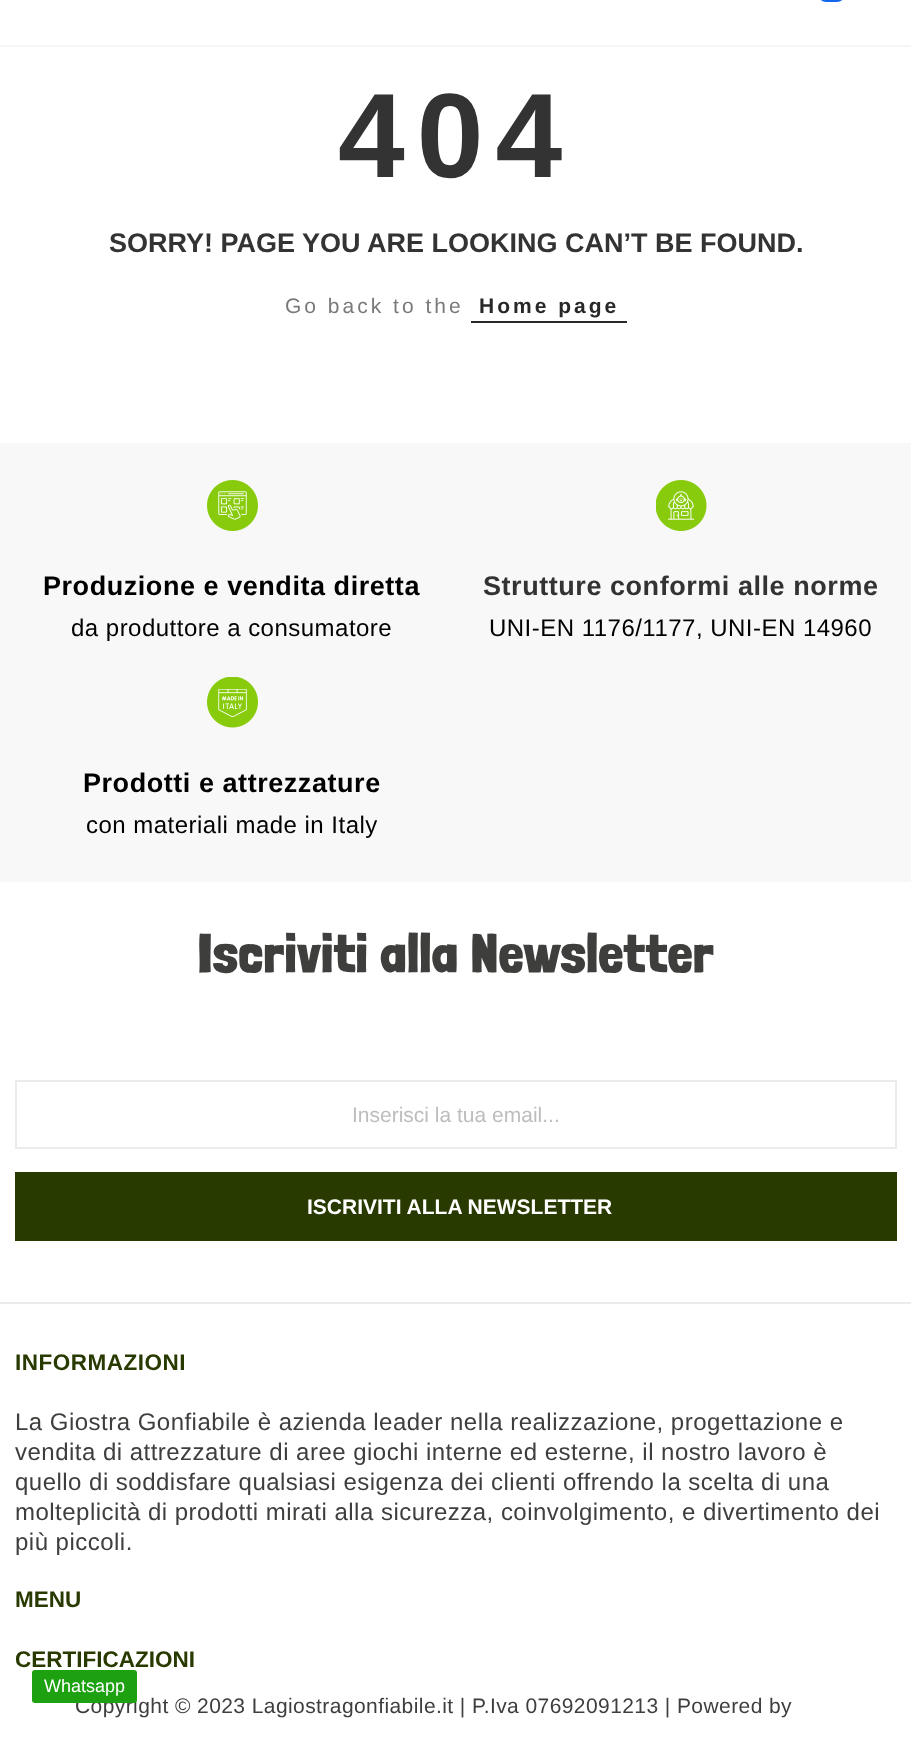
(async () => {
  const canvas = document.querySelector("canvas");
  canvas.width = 911;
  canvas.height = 1750;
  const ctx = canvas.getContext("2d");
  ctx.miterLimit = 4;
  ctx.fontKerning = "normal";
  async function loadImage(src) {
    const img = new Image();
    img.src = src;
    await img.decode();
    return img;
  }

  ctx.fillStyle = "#ffffff";
  ctx.fillRect(0, 0, 911, 1750);
  ctx.fillStyle = "#f5f5f5";
  ctx.fillRect(0, 45, 911, 2);
  ctx.fillStyle = "#1367ef";
  ctx.beginPath();
  ctx.roundRect(818, -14, 27, 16, 13.5);
  ctx.fill();
  ctx.fillStyle = "#282828";
  ctx.fillRect(471, 321, 156, 2);
  ctx.fillStyle = "#f8f8f8";
  ctx.fillRect(0, 443, 911, 439);
  ctx.drawImage(await loadImage("img/1.png"), 207, 480, 51, 51);
  ctx.drawImage(await loadImage("img/2.png"), 656, 480, 51, 51);
  ctx.drawImage(await loadImage("img/3.png"), 207, 677, 51, 51);
  ctx.strokeStyle = "#ebebeb";
  ctx.lineWidth = 2;
  ctx.strokeRect(16, 1081, 880, 67);
  ctx.fillStyle = "#283a00";
  ctx.fillRect(15, 1172, 882, 69);
  ctx.fillStyle = "#ebebeb";
  ctx.fillRect(0, 1302, 911, 2);
  ctx.letterSpacing = "12px";
  ctx.font = "bold 120px Liberation Sans";
  ctx.fillStyle = "#333334";
  ctx.fillText("404", 338, 177);
  ctx.letterSpacing = "0px";
  ctx.font = "bold 27px Liberation Sans";
  ctx.fillText("SORRY! PAGE YOU ARE LOOKING CAN’T BE FOUND.", 109, 252);
  ctx.letterSpacing = "3px";
  ctx.font = "21px Liberation Sans";
  ctx.fillStyle = "#7a7a7a";
  ctx.fillText("Go back to the", 285, 313);
  ctx.font = "bold 21px Liberation Sans";
  ctx.fillStyle = "#282828";
  ctx.fillText("Home page", 479, 313);
  ctx.letterSpacing = "0.55px";
  ctx.font = "bold 27px Liberation Sans";
  ctx.fillStyle = "#000000";
  ctx.fillText("Produzione e vendita diretta", 43, 595);
  ctx.letterSpacing = "0.48px";
  ctx.font = "24px Liberation Sans";
  ctx.fillText("da produttore a consumatore", 71, 636);
  ctx.letterSpacing = "0.55px";
  ctx.font = "bold 27px Liberation Sans";
  ctx.fillStyle = "#333334";
  ctx.fillText("Strutture conformi alle norme", 483, 595);
  ctx.letterSpacing = "0.48px";
  ctx.font = "24px Liberation Sans";
  ctx.fillStyle = "#000000";
  ctx.fillText("UNI-EN 1176/1177, UNI-EN 14960", 489, 636);
  ctx.letterSpacing = "0.55px";
  ctx.font = "bold 27px Liberation Sans";
  ctx.fillText("Prodotti e attrezzature", 83, 792);
  ctx.letterSpacing = "0.48px";
  ctx.font = "24px Liberation Sans";
  ctx.fillText("con materiali made in Italy", 86, 833);
  ctx.letterSpacing = "1.2px";
  ctx.font = "900 54px Londrina Solid";
  ctx.fillStyle = "#3e3f3d";
  ctx.fillText("Iscriviti alla Newsletter", 198, 972);
  ctx.letterSpacing = "0px";
  ctx.font = "21px Liberation Sans";
  ctx.fillStyle = "#bdbdbd";
  ctx.fillText("Inserisci la tua email...", 352, 1122);
  ctx.font = "bold 21px Liberation Sans";
  ctx.fillStyle = "#ffffff";
  ctx.fillText("ISCRIVITI ALLA NEWSLETTER", 307, 1214);
  ctx.letterSpacing = "0.5px";
  ctx.font = "bold 22.5px Liberation Sans";
  ctx.fillStyle = "#283a00";
  ctx.fillText("INFORMAZIONI", 15, 1370);
  ctx.letterSpacing = "0.48px";
  ctx.font = "24px Liberation Sans";
  ctx.fillStyle = "#3e3f3d";
  for (const [text, x, y] of [
    ["La Giostra Gonfiabile è azienda leader nella realizzazione, progettazione e", 15, 1430],
    ["vendita di attrezzature di aree giochi interne ed esterne, il nostro lavoro è", 15, 1460],
    ["quello di soddisfare qualsiasi esigenza dei clienti offrendo la scelta di una", 15, 1490],
    ["molteplicità di prodotti mirati alla sicurezza, coinvolgimento, e divertimento dei", 15, 1520],
    ["più piccoli.", 15, 1550],
  ]) {
    ctx.fillText(text, x, y);
  }
  ctx.letterSpacing = "0px";
  ctx.font = "bold 22.5px Liberation Sans";
  ctx.fillStyle = "#283a00";
  ctx.fillText("MENU", 15, 1607);
  ctx.fillText("CERTIFICAZIONI", 15, 1667);
  ctx.letterSpacing = "0.42px";
  ctx.font = "21px Liberation Sans";
  ctx.fillStyle = "#3e3f3d";
  ctx.fillText("Copyright © 2023 Lagiostragonfiabile.it | P.Iva 07692091213 | Powered by", 75, 1713);
  ctx.fillStyle = "#1da110";
  ctx.beginPath();
  ctx.roundRect(32, 1670, 105, 33, 3);
  ctx.fill();
  ctx.letterSpacing = "0px";
  ctx.font = "18px Liberation Sans";
  ctx.fillStyle = "#ffffff";
  ctx.fillText("Whatsapp", 44, 1692);
})();
